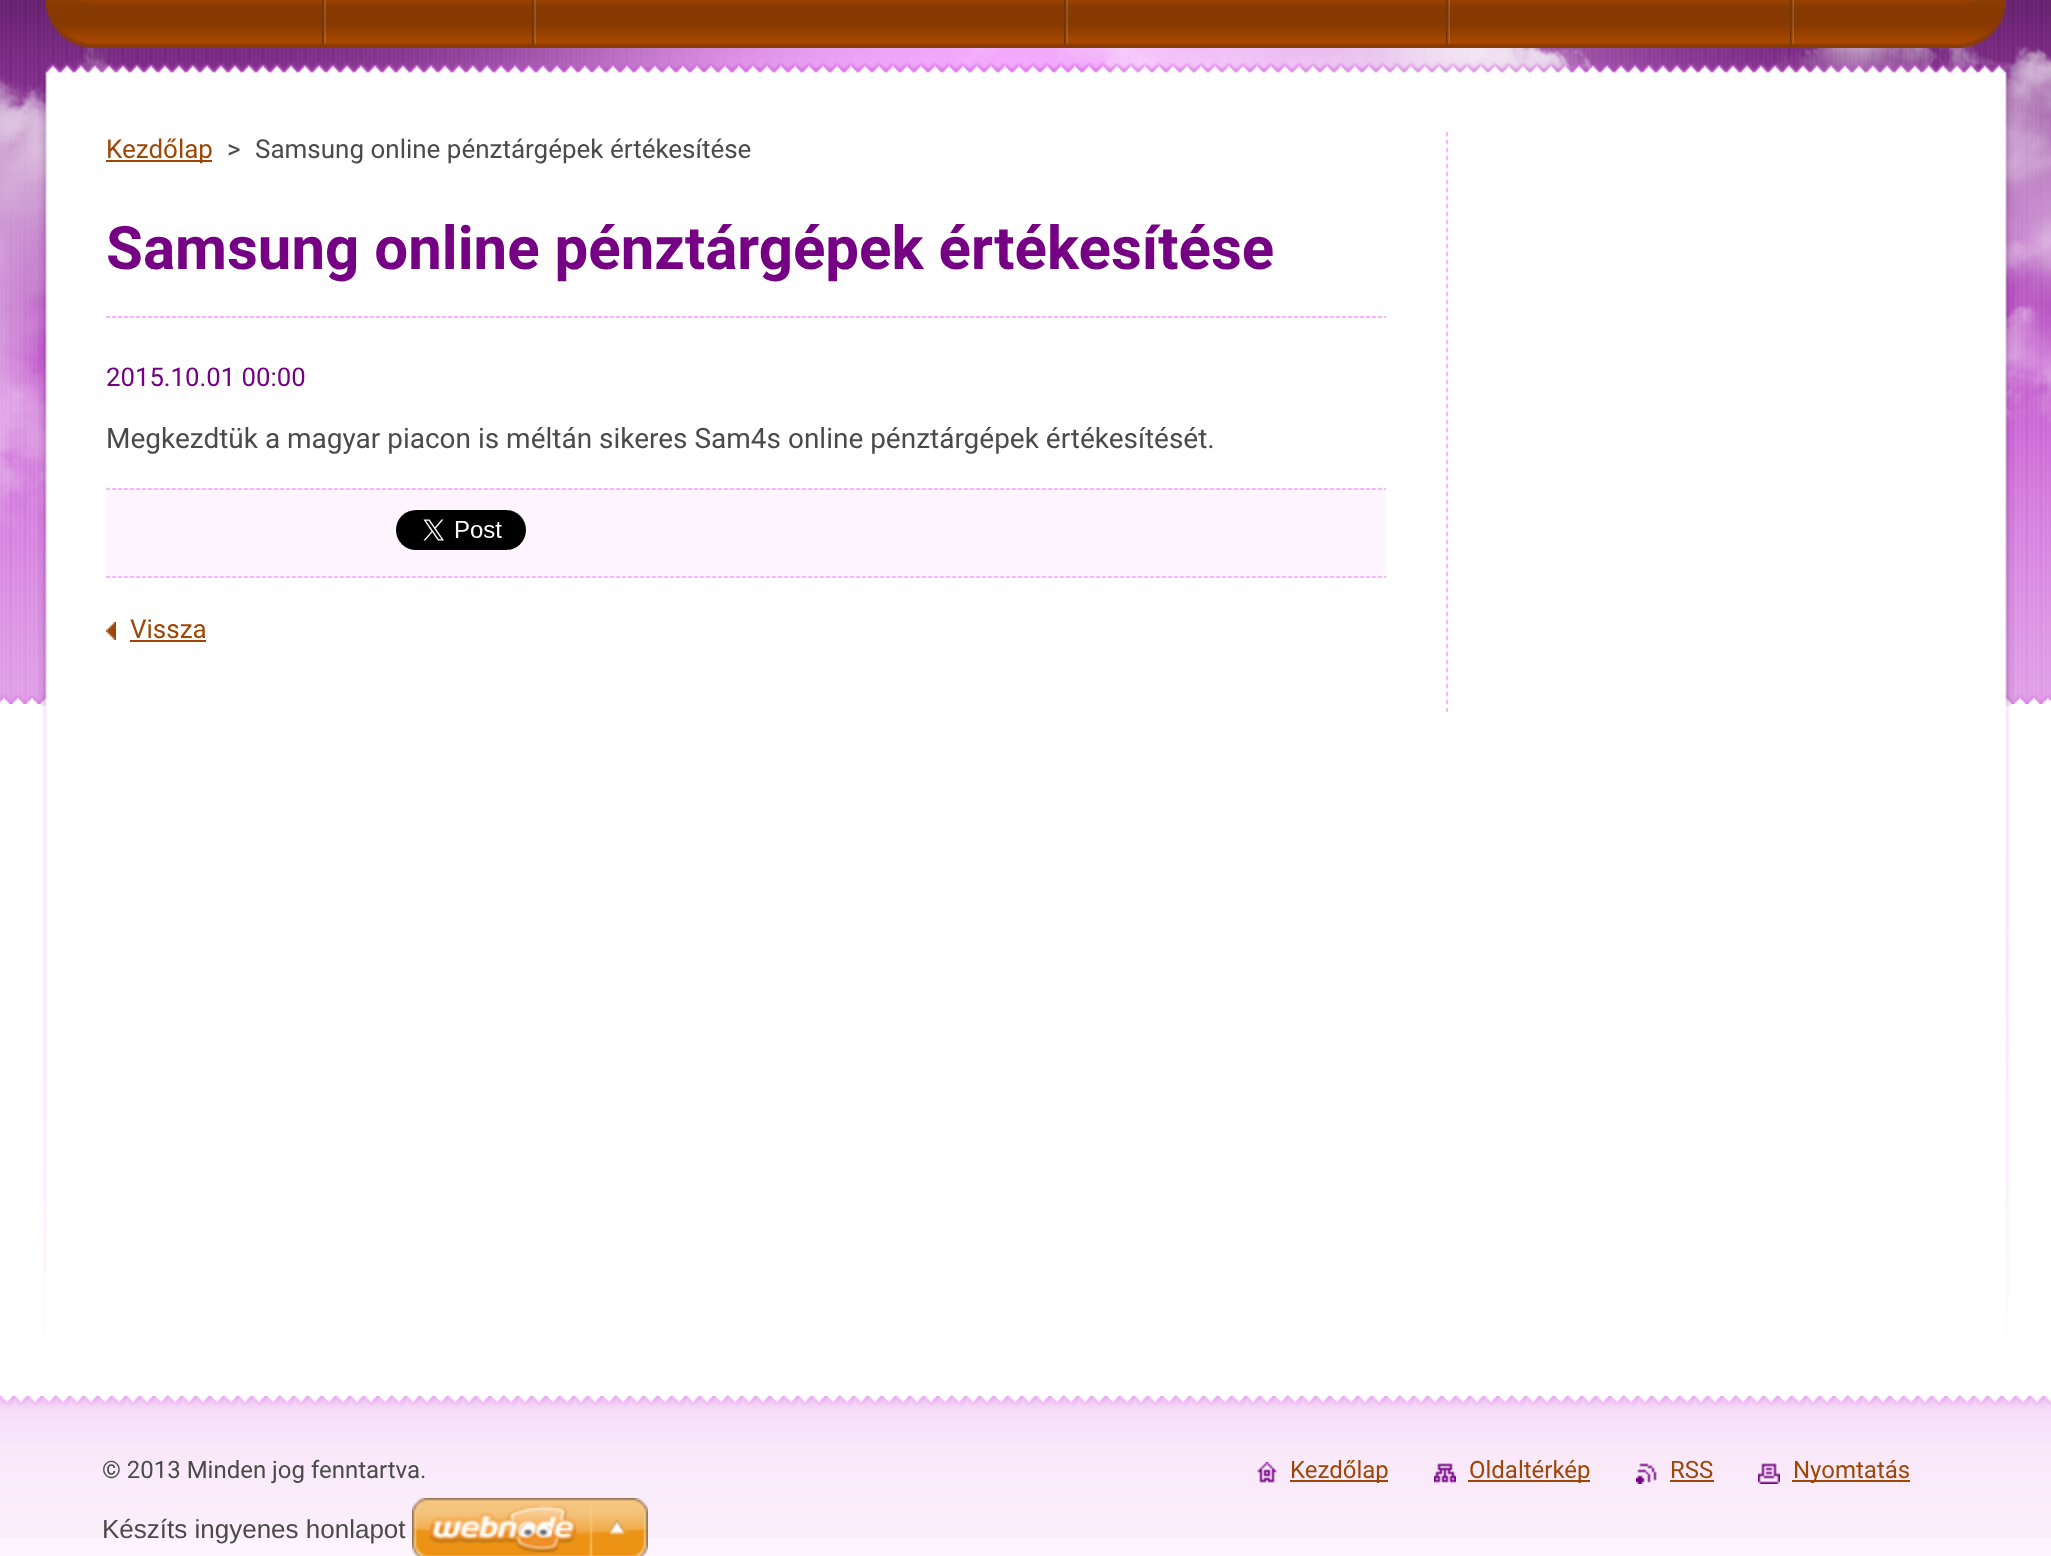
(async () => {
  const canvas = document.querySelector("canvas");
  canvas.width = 2051;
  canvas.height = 1556;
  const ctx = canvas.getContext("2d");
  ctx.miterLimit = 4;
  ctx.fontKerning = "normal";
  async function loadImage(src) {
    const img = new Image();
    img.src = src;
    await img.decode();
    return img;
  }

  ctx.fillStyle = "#fdf4fd";
  ctx.fillRect(0, 0, 2051, 1556);
  ctx.fillStyle = "#ffffff";
  ctx.fillRect(0, 704, 2051, 692);
  ctx.drawImage(await loadImage("img/1.png"), 0, 0, 2051, 704);
  ctx.drawImage(await loadImage("img/2.png"), 0, 42, 2051, 664);
  ctx.drawImage(await loadImage("img/3.png"), 46, 0, 1960, 48);
  ctx.drawImage(await loadImage("img/4.png"), 322, 0, 4, 45);
  ctx.drawImage(await loadImage("img/4.png"), 532, 0, 4, 45);
  ctx.drawImage(await loadImage("img/4.png"), 1064, 0, 4, 45);
  ctx.drawImage(await loadImage("img/4.png"), 1446, 0, 4, 45);
  ctx.drawImage(await loadImage("img/4.png"), 1790, 0, 4, 45);
  ctx.drawImage(await loadImage("img/5.png"), 42, 706, 1968, 629);
  ctx.drawImage(await loadImage("img/6.png"), 1446, 131, 2, 581);
  ctx.fillStyle = "#9d4605";
  ctx.fillRect(106, 160, 106, 2);
  ctx.drawImage(await loadImage("img/7.png"), 106, 316, 1280, 2);
  ctx.drawImage(await loadImage("img/7.png"), 106, 488, 1280, 2);
  ctx.fillStyle = "#fef5ff";
  ctx.fillRect(106, 490, 1280, 86);
  ctx.drawImage(await loadImage("img/7.png"), 106, 576, 1280, 2);
  ctx.drawImage(await loadImage("img/8.png"), 396, 510, 130, 40);
  ctx.drawImage(await loadImage("img/9.png"), 106, 622, 10, 18);
  ctx.fillStyle = "#9d4605";
  ctx.fillRect(130, 640, 76, 2);
  ctx.drawImage(await loadImage("img/10.png"), 0, 1396, 2051, 142);
  ctx.drawImage(await loadImage("img/11.png"), 1257, 1462, 20, 21);
  ctx.fillRect(1290, 1480, 98, 2);
  ctx.drawImage(await loadImage("img/12.png"), 1434, 1463, 22, 20);
  ctx.fillRect(1468, 1480, 122, 2);
  ctx.drawImage(await loadImage("img/13.png"), 1636, 1463, 21, 21);
  ctx.fillRect(1670, 1480, 44, 2);
  ctx.drawImage(await loadImage("img/14.png"), 1758, 1463, 22, 21);
  ctx.fillRect(1792, 1480, 118, 2);
  ctx.drawImage(await loadImage("img/15.png"), 412, 1498, 236, 58);
  ctx.font = "26px Roboto";
  ctx.fillText("Kezdőlap", 106, 158);
  ctx.fillStyle = "#4a4a4a";
  ctx.fillText(">", 227, 158);
  ctx.fillText("Samsung online pénztárgépek értékesítése", 255, 158);
  ctx.font = "bold 60px Roboto";
  ctx.fillStyle = "#750083";
  ctx.fillText("Samsung online pénztárgépek értékesítése", 106, 269);
  ctx.font = "25.75px Roboto";
  ctx.fillText("2015.10.01 00:00", 106, 386);
  ctx.font = "28px Roboto";
  ctx.fillStyle = "#4a4a4a";
  ctx.fillText("Megkezdtük a magyar piacon is méltán sikeres Sam4s online pénztárgépek értékesítését.", 106, 448);
  ctx.font = "26px Roboto";
  ctx.fillStyle = "#9d4605";
  ctx.fillText("Vissza", 130, 638);
  ctx.font = "24px Roboto";
  ctx.fillStyle = "#4a4a4a";
  ctx.fillText("© 2013 Minden jog fenntartva.", 102, 1478);
  ctx.fillStyle = "#9d4605";
  for (const [text, x, y] of [
    ["Kezdőlap", 1290, 1478],
    ["Oldaltérkép", 1469, 1478],
    ["RSS", 1670, 1478],
    ["Nyomtatás", 1793, 1478],
  ]) {
    ctx.fillText(text, x, y);
  }
  ctx.font = "26px Liberation Sans";
  ctx.fillStyle = "#4a4a4a";
  ctx.fillText("Készíts ingyenes honlapot", 102, 1538);
})();
